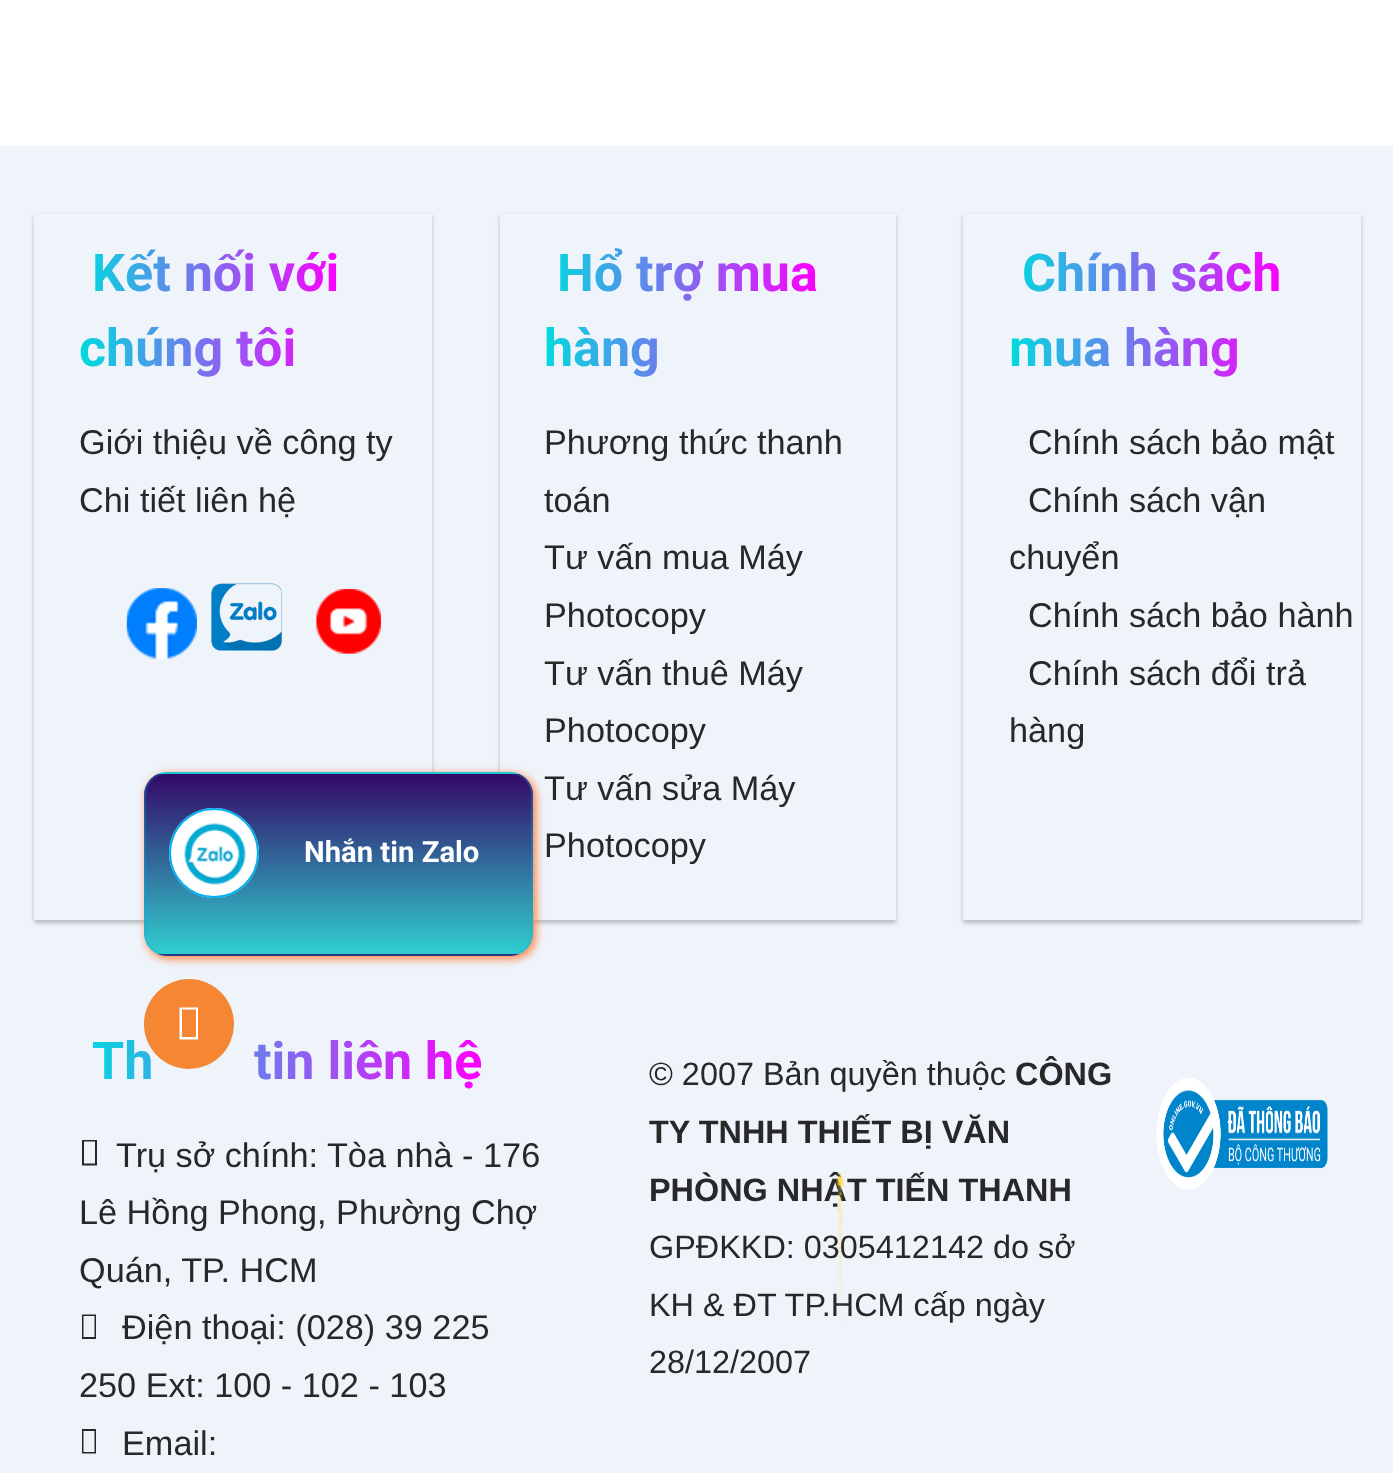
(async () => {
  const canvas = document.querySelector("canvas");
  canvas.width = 1393;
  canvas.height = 1473;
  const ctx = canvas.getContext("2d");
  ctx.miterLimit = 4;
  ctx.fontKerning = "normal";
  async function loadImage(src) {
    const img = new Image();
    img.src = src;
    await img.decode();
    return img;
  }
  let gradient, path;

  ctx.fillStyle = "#ffffff";
  ctx.fillRect(0, 0, 1393, 1473);
  ctx.fillStyle = "#eff4fb";
  ctx.fillRect(0, 146, 1393, 1327);
  ctx.save();
  path = new Path2D("M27 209H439V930H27ZM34 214H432V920H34Z");
  ctx.clip(path, "evenodd");
  ctx.fillStyle = "rgba(0, 0, 0, 0.24)";
  ctx.filter = "blur(2px)";
  ctx.beginPath();
  ctx.rect(34, 216, 398, 707);
  ctx.fill();
  ctx.filter = "none";
  ctx.restore();
  ctx.drawImage(await loadImage("img/1.png"), 126, 588, 71, 71);
  ctx.drawImage(await loadImage("img/2.png"), 211, 583, 71, 68);
  ctx.drawImage(await loadImage("img/3.png"), 316, 589, 65, 65);
  ctx.save();
  path = new Path2D("M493 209H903V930H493ZM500 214H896V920H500Z");
  ctx.clip(path, "evenodd");
  ctx.fillStyle = "rgba(0, 0, 0, 0.24)";
  ctx.filter = "blur(2px)";
  ctx.beginPath();
  ctx.rect(500, 216, 396, 707);
  ctx.fill();
  ctx.filter = "none";
  ctx.restore();
  ctx.save();
  path = new Path2D("M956 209H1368V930H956ZM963 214H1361V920H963Z");
  ctx.clip(path, "evenodd");
  ctx.fillStyle = "rgba(0, 0, 0, 0.24)";
  ctx.filter = "blur(2px)";
  ctx.beginPath();
  ctx.rect(963, 216, 398, 707);
  ctx.fill();
  ctx.filter = "none";
  ctx.restore();
  ctx.fillStyle = "#282828";
  path = new Path2D("M82 1165.5V1140H97V1165.5ZM84 1163.5H95V1141.5H84Z");
  ctx.fill(path);
  path = new Path2D("M82 1339V1314.5H96V1339ZM83.5 1337H94.5V1316H83.5Z");
  ctx.fill(path);
  path = new Path2D("M82 1453.5V1429H96V1453.5ZM83.5 1452H94.5V1431H83.5Z");
  ctx.fill(path);
  ctx.drawImage(await loadImage("img/4.png"), 1156, 1078, 172, 112);
  ctx.fillStyle = "#fb8543";
  ctx.filter = "blur(4.5px)";
  ctx.beginPath();
  ctx.roundRect(146, 774, 390, 185, 23);
  ctx.fill();
  ctx.filter = "none";
  ctx.save();
  ctx.beginPath();
  ctx.roundRect(144, 772, 389, 184, 23);
  ctx.clip();
  gradient = ctx.createLinearGradient(339, 774, 339, 594);
  gradient.addColorStop(0, "#30cfd0");
  gradient.addColorStop(1, "#330867");
  ctx.fillStyle = gradient;
  ctx.fillRect(157, 772, 363, 2);
  gradient = ctx.createLinearGradient(339, 954, 339, 774);
  gradient.addColorStop(0, "#30cfd0");
  gradient.addColorStop(1, "#330867");
  ctx.fillStyle = gradient;
  ctx.fillRect(144, 774, 389, 180);
  gradient = ctx.createLinearGradient(339, 1134, 339, 954);
  gradient.addColorStop(0, "#30cfd0");
  gradient.addColorStop(1, "#330867");
  ctx.fillStyle = gradient;
  ctx.fillRect(157, 954, 363, 2);
  ctx.restore();
  ctx.beginPath();
  ctx.roundRect(145, 773, 387, 182, 22);
  ctx.strokeStyle = "rgba(0, 175, 238, 0.29)";
  ctx.lineWidth = 2;
  ctx.stroke();
  ctx.fillStyle = "#ffffff";
  ctx.beginPath();
  ctx.arc(214, 853, 45, 0, Math.PI * 2);
  ctx.fill();
  ctx.drawImage(await loadImage("img/5.png"), 183, 822, 63, 63);
  ctx.beginPath();
  ctx.arc(214, 853, 44, 0, Math.PI * 2);
  ctx.strokeStyle = "#00afee";
  ctx.stroke();
  ctx.font = "bold 52px Roboto";
  gradient = ctx.createLinearGradient(79, 312, 338, 312);
  gradient.addColorStop(0, "#00dbde");
  gradient.addColorStop(1, "#fc00ff");
  ctx.fillStyle = gradient;
  ctx.fillText("Kết nối với", 92, 291);
  ctx.fillText("chúng tôi", 79, 366);
  ctx.font = "34.25px Liberation Sans";
  ctx.fillStyle = "#282828";
  ctx.fillText("Giới thiệu về công ty", 79, 454);
  ctx.fillText("Chi tiết liên hệ", 79, 512);
  ctx.font = "bold 52px Roboto";
  gradient = ctx.createLinearGradient(544, 312, 816, 312);
  gradient.addColorStop(0, "#00dbde");
  gradient.addColorStop(1, "#fc00ff");
  ctx.fillStyle = gradient;
  ctx.fillText("Hổ trợ mua", 557, 291);
  ctx.fillText("hàng", 544, 366);
  ctx.font = "34.25px Liberation Sans";
  ctx.fillStyle = "#282828";
  for (const [text, x, y] of [
    ["Phương thức thanh", 544, 454],
    ["toán", 544, 512],
    ["Tư vấn mua Máy", 544, 569],
    ["Photocopy", 544, 627],
    ["Tư vấn thuê Máy", 544, 685],
    ["Photocopy", 544, 742],
    ["Tư vấn sửa Máy", 544, 800],
    ["Photocopy", 544, 857],
  ]) {
    ctx.fillText(text, x, y);
  }
  ctx.font = "bold 52px Roboto";
  gradient = ctx.createLinearGradient(1009, 312, 1280, 312);
  gradient.addColorStop(0, "#00dbde");
  gradient.addColorStop(1, "#fc00ff");
  ctx.fillStyle = gradient;
  ctx.fillText("Chính sách", 1022, 291);
  ctx.fillText("mua hàng", 1009, 366);
  ctx.font = "34.25px Liberation Sans";
  ctx.fillStyle = "#282828";
  for (const [text, x, y] of [
    ["Chính sách bảo mật", 1028, 454],
    ["Chính sách vận", 1028, 512],
    ["chuyển", 1009, 569],
    ["Chính sách bảo hành", 1028, 627],
    ["Chính sách đổi trả", 1028, 685],
    ["hàng", 1009, 742],
  ]) {
    ctx.fillText(text, x, y);
  }
  ctx.font = "bold 52px Roboto";
  gradient = ctx.createLinearGradient(79, 1062, 481, 1062);
  gradient.addColorStop(0, "#00dbde");
  gradient.addColorStop(1, "#fc00ff");
  ctx.fillStyle = gradient;
  ctx.fillText("Th", 92, 1079);
  ctx.fillText("tin liên hệ", 254, 1079);
  ctx.font = "34.25px Liberation Sans";
  ctx.fillStyle = "#282828";
  for (const [text, x, y] of [
    ["Trụ sở chính: Tòa nhà - 176", 116, 1167],
    ["Lê Hồng Phong, Phường Chợ", 79, 1224],
    ["Quán, TP. HCM", 79, 1282],
    ["Điện thoại: (028) 39 225", 122, 1339],
    ["250 Ext: 100 - 102 - 103", 79, 1397],
    ["Email:", 122, 1455],
  ]) {
    ctx.fillText(text, x, y);
  }
  ctx.font = "32.4px Liberation Sans";
  ctx.fillText("© 2007 Bản quyền thuộc", 649, 1085);
  ctx.font = "bold 32.4px Liberation Sans";
  for (const [text, x, y] of [
    ["CÔNG", 1015, 1085],
    ["TY TNHH THIẾT BỊ VĂN", 649, 1143],
    ["PHÒNG NHẬT TIẾN THANH", 649, 1201],
  ]) {
    ctx.fillText(text, x, y);
  }
  ctx.font = "32.4px Liberation Sans";
  for (const [text, x, y] of [
    ["GPĐKKD: 0305412142 do sở", 649, 1258],
    ["KH & ĐT TP.HCM cấp ngày", 649, 1316],
    ["28/12/2007", 649, 1373],
  ]) {
    ctx.fillText(text, x, y);
  }
  ctx.font = "bold 29.25px Roboto";
  ctx.fillStyle = "#ffffff";
  ctx.fillText("Nhắn tin Zalo", 304, 862);
  ctx.fillStyle = "#f58634";
  ctx.beginPath();
  ctx.arc(189, 1024, 45, 0, Math.PI * 2);
  ctx.fill();
  ctx.fillStyle = "#ffffff";
  path = new Path2D("M179.5 1039.5V1007.5H198V1039.5ZM182 1037H196V1009.5H182Z");
  ctx.fill(path);
  ctx.drawImage(await loadImage("img/6.png"), 836, 1171, 9, 151);
})();
